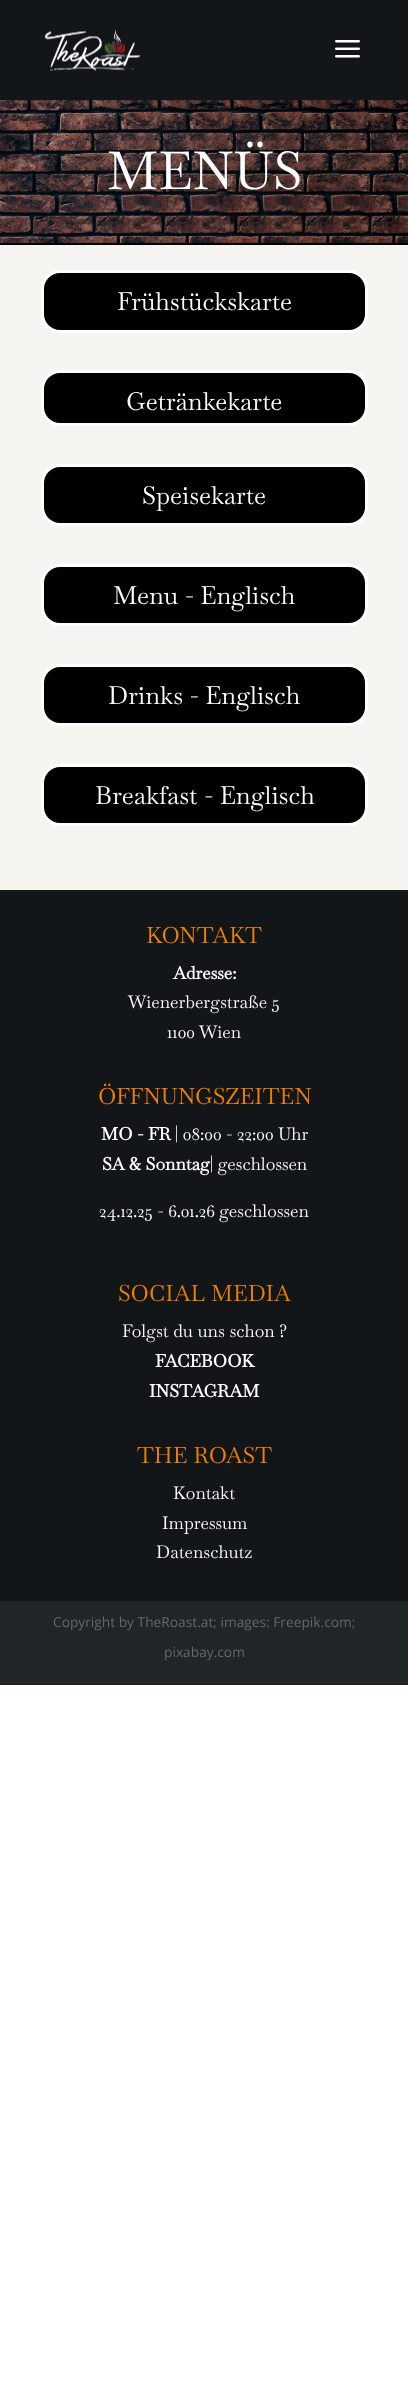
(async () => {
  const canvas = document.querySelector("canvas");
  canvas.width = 408;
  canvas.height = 2401;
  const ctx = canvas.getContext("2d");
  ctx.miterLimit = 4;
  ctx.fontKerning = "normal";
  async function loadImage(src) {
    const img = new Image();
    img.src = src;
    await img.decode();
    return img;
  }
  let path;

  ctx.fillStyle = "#ffffff";
  ctx.fillRect(0, 0, 408, 2401);
  ctx.drawImage(await loadImage("img/3.png"), 0, 100, 408, 143);
  ctx.fillStyle = "rgba(0, 0, 0, 0.1)";
  path = new Path2D("M0 100V101H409V1V100Z");
  ctx.fill(path);
  ctx.fillStyle = "#121618";
  ctx.fillRect(0, 0, 408, 100);
  ctx.drawImage(await loadImage("img/1.png"), 45, 29, 95, 42);
  ctx.drawImage(await loadImage("img/2.png"), 335, 40, 25, 18);
  ctx.fillStyle = "#000000";
  ctx.fillRect(0, 243, 408, 2);
  ctx.fillStyle = "#f5f4f0";
  ctx.fillRect(0, 245, 408, 645);
  ctx.fillStyle = "#000000";
  ctx.beginPath();
  ctx.roundRect(42.5, 271.5, 324, 60, 17.5);
  ctx.fill();
  ctx.strokeStyle = "#ffffff";
  ctx.lineWidth = 3;
  ctx.stroke();
  ctx.beginPath();
  ctx.roundRect(42.5, 371.5, 324, 53, 17.5);
  ctx.fill();
  ctx.stroke();
  ctx.beginPath();
  ctx.roundRect(42.5, 465.5, 324, 59, 17.5);
  ctx.fill();
  ctx.stroke();
  ctx.beginPath();
  ctx.roundRect(42.5, 565.5, 324, 59, 17.5);
  ctx.fill();
  ctx.stroke();
  ctx.beginPath();
  ctx.roundRect(42.5, 665.5, 324, 59, 17.5);
  ctx.fill();
  ctx.stroke();
  ctx.beginPath();
  ctx.roundRect(42.5, 765.5, 324, 59, 17.5);
  ctx.fill();
  ctx.stroke();
  ctx.fillStyle = "#121618";
  ctx.fillRect(0, 890, 408, 711);
  ctx.fillStyle = "#202527";
  ctx.fillRect(0, 1601, 408, 84);
  ctx.font = "52.5px Baskervville";
  ctx.fillStyle = "#ffffff";
  ctx.fillText("MENÜS", 107, 189);
  ctx.font = "25px Baskervville";
  for (const [text, x, y] of [
    ["Frühstückskarte", 117, 310],
    ["Getränkekarte", 126, 410],
    ["Speisekarte", 142, 504],
    ["Menu - Englisch", 113, 604],
    ["Drinks - Englisch", 108, 704],
    ["Breakfast - Englisch", 95, 804],
  ]) {
    ctx.fillText(text, x, y);
  }
  ctx.font = "22.5px Baskervville";
  ctx.fillStyle = "#ef7f00";
  ctx.fillText("KONTAKT", 146, 943);
  ctx.font = "bold 17.5px Baskervville";
  ctx.fillStyle = "#ffffff";
  ctx.fillText("Adresse:", 173, 979);
  ctx.font = "17.5px Baskervville";
  ctx.fillText("Wienerbergstraße 5", 128, 1008);
  ctx.fillText("1100 Wien", 167, 1038);
  ctx.font = "22.5px Baskervville";
  ctx.fillStyle = "#ef7f00";
  ctx.fillText("ÖFFNUNGSZEITEN", 98, 1104);
  ctx.font = "bold 17.5px Baskervville";
  ctx.fillStyle = "#ffffff";
  ctx.fillText("MO - FR", 101, 1140);
  ctx.font = "17.5px Baskervville";
  ctx.fillText("| 08:00 - 22:00 Uhr", 175, 1140);
  ctx.font = "bold 17.5px Baskervville";
  ctx.fillText("SA & Sonntag", 102, 1170);
  ctx.font = "17.5px Baskervville";
  ctx.fillText("| geschlossen", 210, 1170);
  ctx.fillText("24.12.25 - 6.01.26 geschlossen", 99, 1217);
  ctx.font = "22.5px Baskervville";
  ctx.fillStyle = "#ef7f00";
  ctx.fillText("SOCIAL MEDIA", 118, 1301);
  ctx.font = "17.5px Baskervville";
  ctx.fillStyle = "#ffffff";
  ctx.fillText("Folgst du uns schon ?", 122, 1337);
  ctx.font = "bold 17.5px Baskervville";
  ctx.fillText("FACEBOOK", 155, 1367);
  ctx.fillText("INSTAGRAM", 149, 1397);
  ctx.font = "22.5px Baskervville";
  ctx.fillStyle = "#ef7f00";
  ctx.fillText("THE ROAST", 137, 1463);
  ctx.font = "17.5px Baskervville";
  ctx.fillStyle = "#ffffff";
  for (const [text, x, y] of [
    ["Kontakt", 173, 1499],
    ["Impressum", 162, 1529],
    ["Datenschutz", 156, 1558],
  ]) {
    ctx.fillText(text, x, y);
  }
  ctx.font = "13.75px Open Sans";
  ctx.fillStyle = "#666666";
  ctx.fillText("Copyright by TheRoast.at; images: Freepik.com;", 53, 1627);
  ctx.fillText("pixabay.com", 164, 1657);
})();
